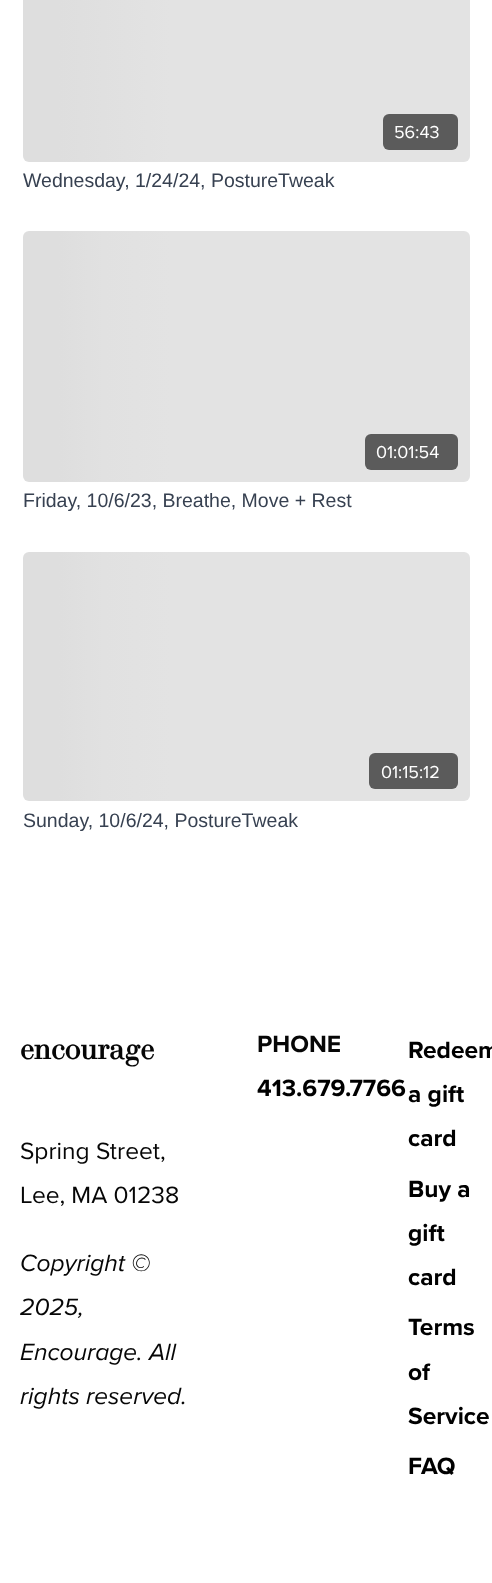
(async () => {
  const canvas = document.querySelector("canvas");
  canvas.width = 492;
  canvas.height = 1583;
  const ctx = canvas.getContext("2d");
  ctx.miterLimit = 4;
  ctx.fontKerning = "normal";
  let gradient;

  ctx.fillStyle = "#ffffff";
  ctx.fillRect(0, 0, 492, 1583);
  gradient = ctx.createLinearGradient(23, 37, 470, 37);
  gradient.addColorStop(0.08, "#dedede");
  gradient.addColorStop(0.18, "#e0e0e0");
  gradient.addColorStop(0.33, "#e3e3e3");
  ctx.fillStyle = gradient;
  ctx.beginPath();
  ctx.roundRect(23, -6, 447, 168, 6);
  ctx.fill();
  ctx.fillStyle = "#5b5b5b";
  ctx.beginPath();
  ctx.roundRect(383, 114, 75, 36, 6);
  ctx.fill();
  gradient = ctx.createLinearGradient(23, 356, 470, 356);
  gradient.addColorStop(0.08, "#dedede");
  gradient.addColorStop(0.18, "#e1e1e1");
  gradient.addColorStop(0.33, "#e3e3e3");
  ctx.fillStyle = gradient;
  ctx.beginPath();
  ctx.roundRect(23, 231, 447, 251, 6);
  ctx.fill();
  ctx.fillStyle = "#5b5b5b";
  ctx.beginPath();
  ctx.roundRect(365, 434, 93, 36, 6);
  ctx.fill();
  gradient = ctx.createLinearGradient(23, 677, 470, 677);
  gradient.addColorStop(0.08, "#dedede");
  gradient.addColorStop(0.18, "#e1e1e1");
  gradient.addColorStop(0.33, "#e3e3e3");
  ctx.fillStyle = gradient;
  ctx.beginPath();
  ctx.roundRect(23, 552, 447, 249, 6);
  ctx.fill();
  ctx.fillStyle = "#5b5b5b";
  ctx.beginPath();
  ctx.roundRect(369, 753, 89, 36, 6);
  ctx.fill();
  ctx.font = "18px Proxima Nova";
  ctx.fillStyle = "#ffffff";
  ctx.fillText("56:43", 394, 138);
  ctx.font = "19.5px Liberation Sans";
  ctx.fillStyle = "#374151";
  ctx.fillText("Wednesday, 1/24/24, PostureTweak", 23, 187);
  ctx.font = "18px Proxima Nova";
  ctx.fillStyle = "#ffffff";
  ctx.fillText("01:01:54", 376, 458);
  ctx.font = "19.5px Liberation Sans";
  ctx.fillStyle = "#374151";
  ctx.fillText("Friday, 10/6/23, Breathe, Move + Rest", 23, 507);
  ctx.font = "18px Proxima Nova";
  ctx.fillStyle = "#ffffff";
  ctx.fillText("01:15:12", 381, 778);
  ctx.font = "19.5px Liberation Sans";
  ctx.fillStyle = "#374151";
  ctx.fillText("Sunday, 10/6/24, PostureTweak", 23, 827);
  ctx.font = "bold 31px 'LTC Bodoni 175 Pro'";
  ctx.fillStyle = "#060606";
  ctx.fillText("encourage", 20, 1059);
  ctx.font = "24.5px Proxima Nova";
  ctx.fillText("Spring Street,", 20, 1159);
  ctx.fillText("Lee, MA 01238", 20, 1203);
  ctx.font = "italic 24.5px Proxima Nova";
  for (const [text, x, y] of [
    ["Copyright ©", 20, 1271],
    ["2025,", 20, 1315],
    ["Encourage. All", 20, 1360],
    ["rights reserved.", 20, 1404],
  ]) {
    ctx.fillText(text, x, y);
  }
  ctx.font = "bold 24.5px Proxima Nova";
  ctx.fillText("PHONE", 257, 1052);
  ctx.fillStyle = "#000000";
  for (const [text, x, y] of [
    ["413.679.7766", 257, 1096],
    ["Redeem", 408, 1058],
    ["a gift", 408, 1102],
    ["card", 408, 1146],
    ["Buy a", 408, 1197],
    ["gift", 408, 1241],
    ["card", 408, 1285],
    ["Terms", 408, 1335],
    ["of", 408, 1380],
    ["Service", 408, 1424],
    ["FAQ", 408, 1474],
  ]) {
    ctx.fillText(text, x, y);
  }
})();
